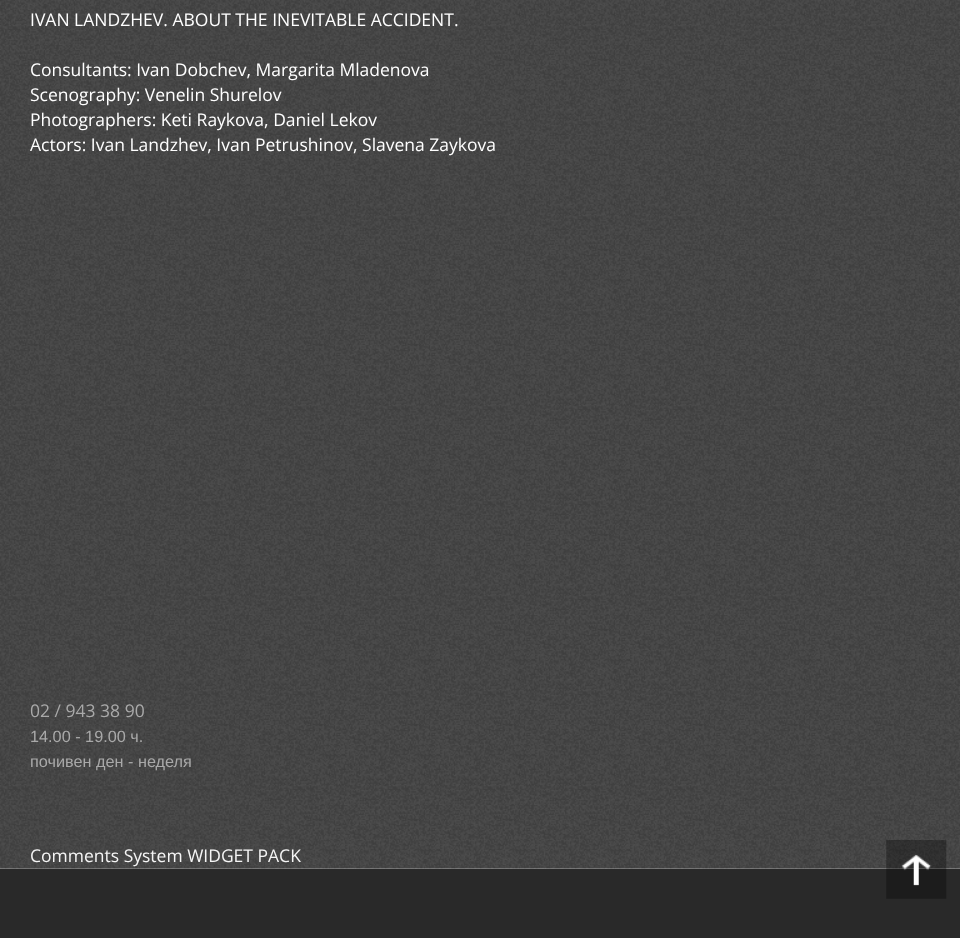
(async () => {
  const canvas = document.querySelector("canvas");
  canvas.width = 960;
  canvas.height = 938;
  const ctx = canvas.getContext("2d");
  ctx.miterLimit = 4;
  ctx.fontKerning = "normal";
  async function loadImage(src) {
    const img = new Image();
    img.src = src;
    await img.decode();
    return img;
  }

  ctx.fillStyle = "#ffffff";
  ctx.fillRect(0, 0, 960, 938);
  ctx.drawImage(await loadImage("img/1.png"), 0, 0, 960, 869);
  ctx.fillStyle = "#292929";
  ctx.fillRect(0, 869, 960, 69);
  ctx.drawImage(await loadImage("img/2.png"), 886, 840, 61, 59);
  ctx.font = "17.5px Open Sans";
  ctx.fillStyle = "#ffffff";
  for (const [text, x, y] of [
    ["IVAN LANDZHEV. ABOUT THE INEVITABLE ACCIDENT.", 30, 26],
    ["Consultants: Ivan Dobchev, Margarita Mladenova", 30, 76],
    ["Scenography: Venelin Shurelov", 30, 101],
    ["Photographers: Keti Raykova, Daniel Lekov", 30, 126],
    ["Actors: Ivan Landzhev, Ivan Petrushinov, Slavena Zaykova", 30, 151],
  ]) {
    ctx.fillText(text, x, y);
  }
  ctx.fillStyle = "#a9a9a9";
  ctx.fillText("02 / 943 38 90", 30, 717);
  ctx.font = "16.25px Liberation Sans";
  ctx.fillText("14.00 - 19.00 ч.", 30, 742);
  ctx.fillText("почивен ден - неделя", 30, 767);
  ctx.font = "17.5px Open Sans";
  ctx.fillStyle = "#f5f5f5";
  ctx.fillText("Comments System WIDGET PACK", 30, 862);
})();
